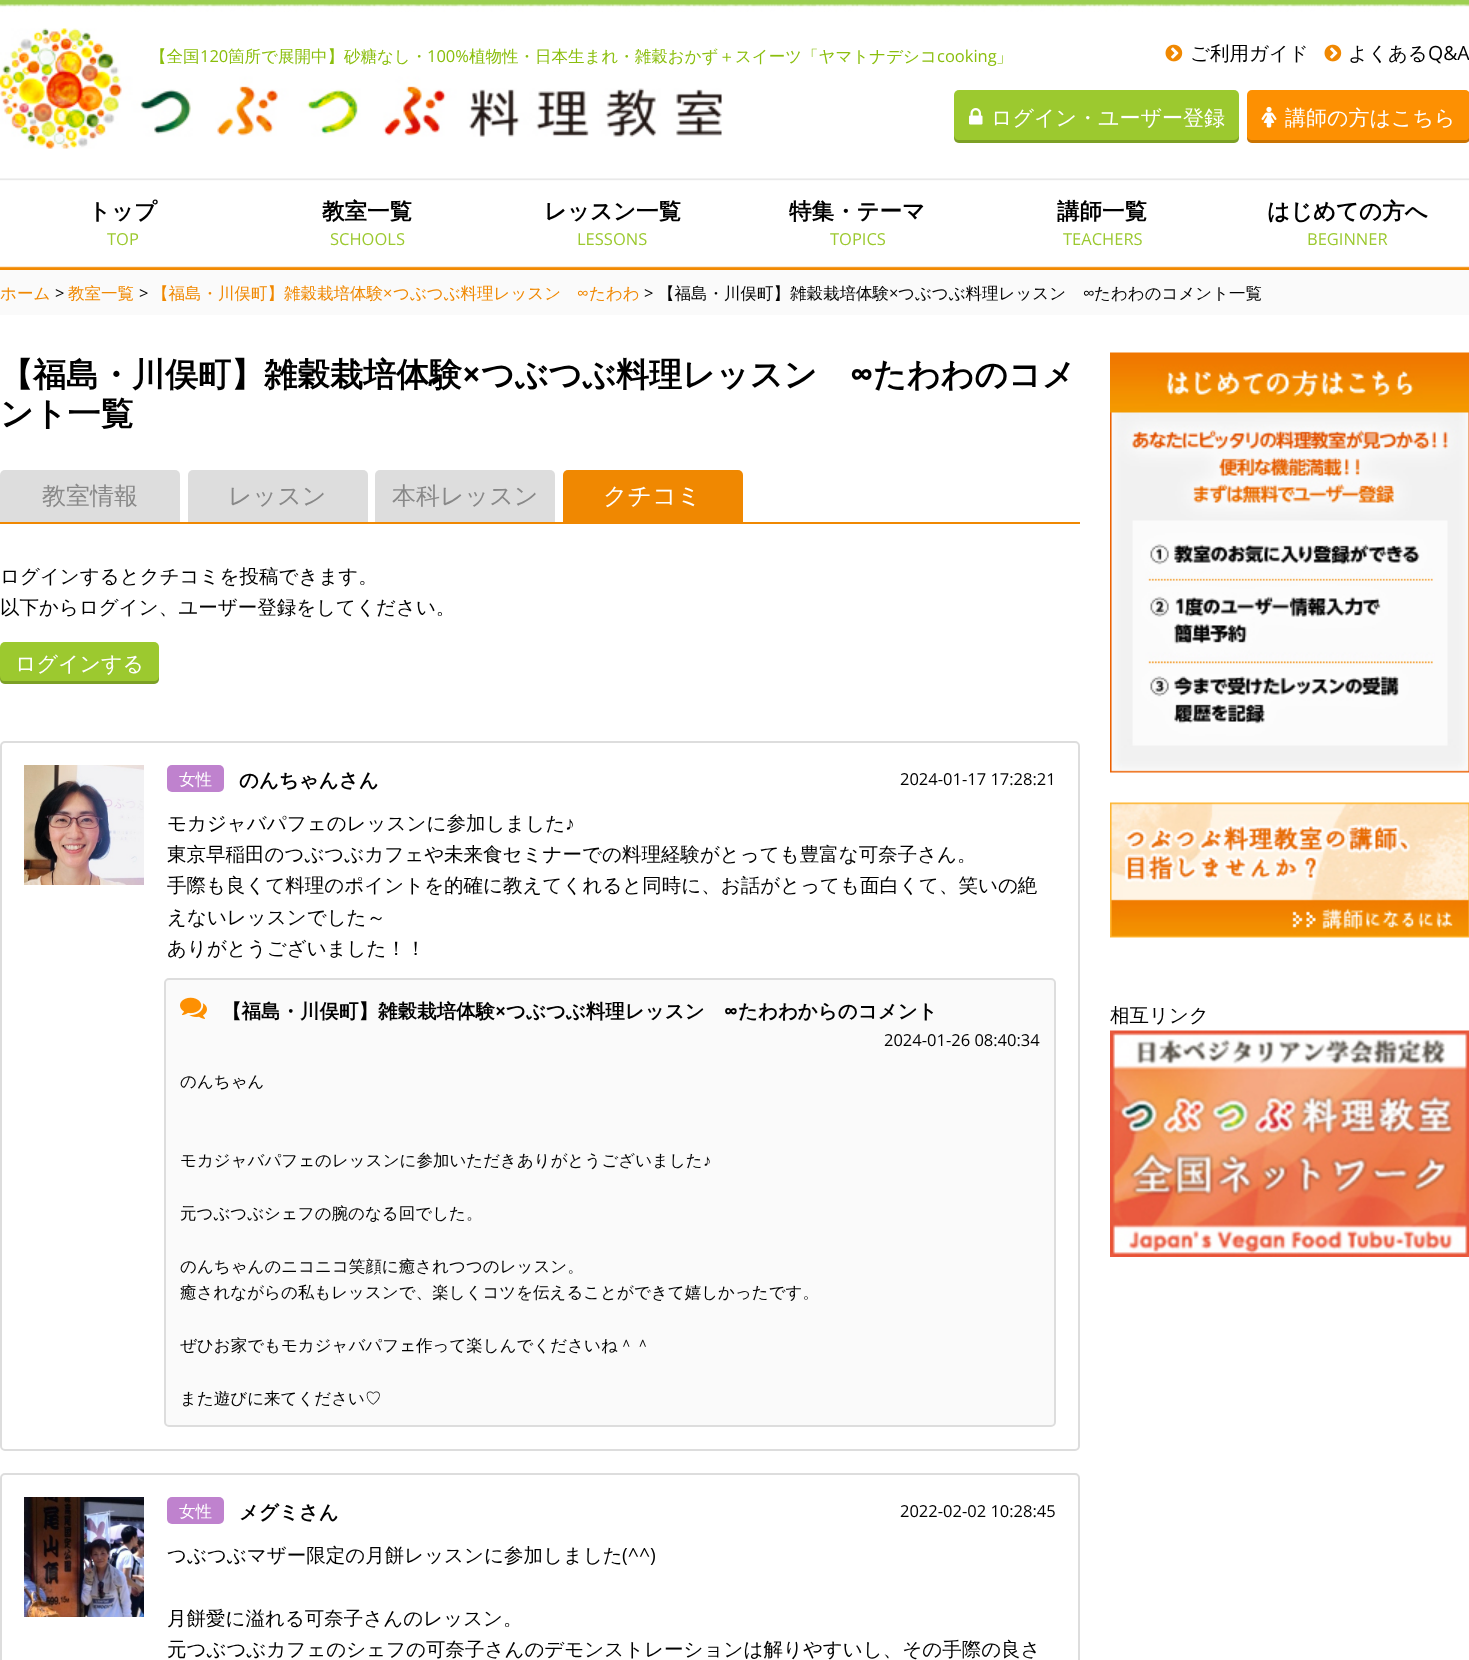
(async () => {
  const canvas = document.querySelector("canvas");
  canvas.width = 1469;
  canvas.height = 1660;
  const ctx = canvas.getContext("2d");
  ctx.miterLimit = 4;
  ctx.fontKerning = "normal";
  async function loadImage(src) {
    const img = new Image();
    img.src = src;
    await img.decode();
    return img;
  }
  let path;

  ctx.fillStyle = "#ffffff";
  ctx.fillRect(0, 0, 1469, 1660);
  ctx.drawImage(await loadImage("img/1.png"), 0, 0, 1469, 270);
  ctx.drawImage(await loadImage("img/2.png"), 0, 28, 722, 121);
  ctx.drawImage(await loadImage("img/3.png"), 1165, 44, 18, 18);
  ctx.drawImage(await loadImage("img/3.png"), 1324, 44, 18, 18);
  ctx.fillStyle = "#9cc92f";
  ctx.beginPath();
  ctx.roundRect(954, 90, 285, 53, 5);
  ctx.fill();
  ctx.fillStyle = "rgba(0, 0, 0, 0.2)";
  path = new Path2D("M954 135C954 139 954 143 959 143H1234C1239 143 1239 139 1239 135C1239 137 1237 140 1234 140H958C956 140 954 137 954 135Z");
  ctx.fill(path);
  ctx.drawImage(await loadImage("img/4.png"), 969, 108, 14, 17);
  ctx.fillStyle = "#fd9002";
  ctx.beginPath();
  ctx.roundRect(1247, 90, 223, 53, 5);
  ctx.fill();
  ctx.fillStyle = "rgba(0, 0, 0, 0.2)";
  path = new Path2D("M1247 137V138C1247 141 1249 143 1252 143H1465C1468 143 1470 141 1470 138V135C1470 137 1468 140 1466 140H1251C1250 140 1248 139 1247 137Z");
  ctx.fill(path);
  ctx.drawImage(await loadImage("img/5.png"), 1261, 106, 16, 22);
  ctx.fillStyle = "#fafafa";
  ctx.fillRect(0, 270, 1469, 45);
  ctx.fillStyle = "#f08801";
  ctx.fillRect(0, 522, 1080, 2);
  ctx.fillStyle = "#dddddd";
  ctx.beginPath();
  ctx.roundRect(0, 470, 180, 52, [5, 5, 0, 0]);
  ctx.fill();
  ctx.beginPath();
  ctx.roundRect(188, 470, 180, 52, [5, 5, 0, 0]);
  ctx.fill();
  ctx.beginPath();
  ctx.roundRect(375, 470, 180, 52, [5, 5, 0, 0]);
  ctx.fill();
  ctx.fillStyle = "#f08801";
  ctx.beginPath();
  ctx.roundRect(563, 470, 180, 52, [5, 5, 0, 0]);
  ctx.fill();
  ctx.fillStyle = "#9cc92f";
  ctx.beginPath();
  ctx.roundRect(0, 642, 159, 42, 5);
  ctx.fill();
  ctx.fillStyle = "rgba(0, 0, 0, 0.2)";
  path = new Path2D("M0 676V679C0 682 2 684 5 684H154C157 684 159 682 159 679V676C159 679 157 681 154 681H4C2 681 0 679 0 676Z");
  ctx.fill(path);
  ctx.beginPath();
  ctx.roundRect(1, 742, 1078, 708, 4);
  ctx.strokeStyle = "#dddddd";
  ctx.lineWidth = 2;
  ctx.stroke();
  ctx.drawImage(await loadImage("img/6.png"), 24, 765, 120, 120);
  ctx.fillStyle = "#bf82ce";
  ctx.beginPath();
  ctx.roundRect(167, 765, 57, 27, 5);
  ctx.fill();
  ctx.fillStyle = "#fafafa";
  ctx.beginPath();
  ctx.roundRect(165, 979, 890, 447, 4);
  ctx.fill();
  ctx.stroke();
  ctx.drawImage(await loadImage("img/7.png"), 180, 997, 27, 22);
  ctx.beginPath();
  ctx.roundRect(1, 1474, 1078, 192, 4);
  ctx.stroke();
  ctx.drawImage(await loadImage("img/8.png"), 24, 1497, 120, 120);
  ctx.fillStyle = "#bf82ce";
  ctx.beginPath();
  ctx.roundRect(167, 1497, 57, 27, 5);
  ctx.fill();
  ctx.drawImage(await loadImage("img/9.png"), 1110, 352, 359, 421);
  ctx.drawImage(await loadImage("img/10.png"), 1110, 802, 359, 136);
  ctx.drawImage(await loadImage("img/11.png"), 1110, 1030, 359, 227);
  ctx.font = "500 19.5px WenQuanYi Zen Hei";
  ctx.fillStyle = "#000000";
  ctx.fillText("ご利用ガイド", 1190, 60);
  ctx.fillText("よくある", 1348, 60);
  ctx.font = "19.5px Open Sans";
  ctx.fillText("Q&A", 1428, 60);
  ctx.font = "500 16.5px WenQuanYi Zen Hei";
  ctx.fillStyle = "#8abe0d";
  ctx.fillText("【全国", 150, 62);
  ctx.font = "16.5px Open Sans";
  ctx.fillText("120", 200, 62);
  ctx.font = "500 16.5px WenQuanYi Zen Hei";
  ctx.fillText("箇所で展開中】砂糖なし・", 228, 62);
  ctx.font = "16.5px Open Sans";
  ctx.fillText("100%", 427, 62);
  ctx.font = "500 16.5px WenQuanYi Zen Hei";
  ctx.fillText("植物性・日本生まれ・雑穀おかず＋スイーツ「ヤマトナデシコ", 469, 62);
  ctx.font = "16.5px Open Sans";
  ctx.fillText("cooking", 937, 62);
  ctx.font = "500 16.5px WenQuanYi Zen Hei";
  ctx.fillText("」", 996, 62);
  ctx.font = "500 21px WenQuanYi Zen Hei";
  ctx.fillStyle = "#ffffff";
  ctx.fillText("ログイン・ユーザー登録", 991, 125);
  ctx.fillText("講師の方はこちら", 1285, 125);
  ctx.font = "bold 22.5px WenQuanYi Zen Hei";
  ctx.fillStyle = "#000000";
  ctx.fillText("トップ", 88, 219);
  ctx.font = "16.5px Open Sans";
  ctx.fillStyle = "#9cc930";
  ctx.fillText("TOP", 107, 245);
  ctx.font = "bold 22.5px WenQuanYi Zen Hei";
  ctx.fillStyle = "#000000";
  ctx.fillText("教室一覧", 322, 219);
  ctx.font = "16.5px Open Sans";
  ctx.fillStyle = "#9cc930";
  ctx.fillText("SCHOOLS", 330, 245);
  ctx.font = "bold 22.5px WenQuanYi Zen Hei";
  ctx.fillStyle = "#000000";
  ctx.fillText("レッスン一覧", 544, 219);
  ctx.font = "16.5px Open Sans";
  ctx.fillStyle = "#9cc930";
  ctx.fillText("LESSONS", 577, 245);
  ctx.font = "bold 22.5px WenQuanYi Zen Hei";
  ctx.fillStyle = "#000000";
  ctx.fillText("特集・テーマ", 789, 219);
  ctx.font = "16.5px Open Sans";
  ctx.fillStyle = "#9cc930";
  ctx.fillText("TOPICS", 830, 245);
  ctx.font = "bold 22.5px WenQuanYi Zen Hei";
  ctx.fillStyle = "#000000";
  ctx.fillText("講師一覧", 1057, 219);
  ctx.font = "16.5px Open Sans";
  ctx.fillStyle = "#9cc930";
  ctx.fillText("TEACHERS", 1063, 245);
  ctx.font = "bold 22.5px WenQuanYi Zen Hei";
  ctx.fillStyle = "#000000";
  ctx.fillText("はじめての方へ", 1267, 219);
  ctx.font = "16.5px Open Sans";
  ctx.fillStyle = "#9cc930";
  ctx.fillText("BEGINNER", 1307, 245);
  ctx.font = "500 16.5px WenQuanYi Zen Hei";
  ctx.fillStyle = "#f08801";
  ctx.fillText("ホーム", 0, 299);
  ctx.font = "16.5px Open Sans";
  ctx.fillStyle = "#000000";
  ctx.fillText(">", 55, 299);
  ctx.font = "500 16.5px WenQuanYi Zen Hei";
  ctx.fillStyle = "#f08801";
  ctx.fillText("教室一覧", 68, 299);
  ctx.font = "16.5px Open Sans";
  ctx.fillStyle = "#000000";
  ctx.fillText(">", 139, 299);
  ctx.font = "500 16.5px WenQuanYi Zen Hei";
  ctx.fillStyle = "#f08801";
  ctx.fillText("【福島・川俣町】雑穀栽培体験", 152, 299);
  ctx.font = "16.5px Open Sans";
  ctx.fillText("×", 383, 299);
  ctx.font = "500 16.5px WenQuanYi Zen Hei";
  ctx.fillText("つぶつぶ料理レッスン", 393, 299);
  ctx.font = "16.5px Open Sans";
  ctx.fillText("∞", 577, 299);
  ctx.font = "500 16.5px WenQuanYi Zen Hei";
  ctx.fillText("たわわ", 589, 299);
  ctx.font = "16.5px Open Sans";
  ctx.fillStyle = "#000000";
  ctx.fillText(">", 644, 299);
  ctx.font = "500 16.5px WenQuanYi Zen Hei";
  ctx.fillText("【福島・川俣町】雑穀栽培体験", 658, 299);
  ctx.font = "16.5px Open Sans";
  ctx.fillText("×", 889, 299);
  ctx.font = "500 16.5px WenQuanYi Zen Hei";
  ctx.fillText("つぶつぶ料理レッスン", 898, 299);
  ctx.font = "16.5px Open Sans";
  ctx.fillText("∞", 1083, 299);
  ctx.font = "500 16.5px WenQuanYi Zen Hei";
  ctx.fillText("たわわのコメント一覧", 1094, 299);
  ctx.font = "bold 33px WenQuanYi Zen Hei";
  ctx.fillText("【福島・川俣町】雑穀栽培体験", 0, 386);
  ctx.font = "bold 33px Open Sans";
  ctx.fillText("×", 462, 386);
  ctx.font = "bold 33px WenQuanYi Zen Hei";
  ctx.fillText("つぶつぶ料理レッスン", 481, 386);
  ctx.font = "bold 33px Open Sans";
  ctx.fillText("∞", 850, 386);
  ctx.font = "bold 33px WenQuanYi Zen Hei";
  ctx.fillText("たわわのコメ", 873, 386);
  ctx.fillText("ント一覧", 0, 425);
  ctx.font = "500 24px WenQuanYi Zen Hei";
  ctx.fillStyle = "#888888";
  for (const [text, x, y] of [
    ["教室情報", 42, 504],
    ["レッスン", 228, 504],
    ["本科レッスン", 392, 504],
  ]) {
    ctx.fillText(text, x, y);
  }
  ctx.fillStyle = "#ffffff";
  ctx.fillText("クチコミ", 603, 504);
  ctx.font = "500 19.5px WenQuanYi Zen Hei";
  ctx.fillStyle = "#000000";
  ctx.fillText("ログインするとクチコミを投稿できます。", 0, 583);
  ctx.fillText("以下からログイン、ユーザー登録をしてください。", 0, 614);
  ctx.font = "500 21px WenQuanYi Zen Hei";
  ctx.fillStyle = "#ffffff";
  ctx.fillText("ログインする", 15, 671);
  ctx.font = "500 16.5px WenQuanYi Zen Hei";
  ctx.fillText("女性", 179, 785);
  ctx.font = "bold 19.5px WenQuanYi Zen Hei";
  ctx.fillStyle = "#000000";
  ctx.fillText("のんちゃんさん", 239, 787);
  ctx.font = "16.5px Open Sans";
  ctx.fillText("2024-01-17 17:28:21", 900, 785);
  ctx.font = "500 19.5px WenQuanYi Zen Hei";
  ctx.fillText("モカジャバパフェのレッスンに参加しました", 167, 830);
  ctx.font = "19.5px Liberation Sans";
  ctx.fillText("♪", 565, 830);
  ctx.font = "500 19.5px WenQuanYi Zen Hei";
  for (const [text, x, y] of [
    ["東京早稲田のつぶつぶカフェや未来食セミナーでの料理経験がとっても豊富な可奈子さん。", 167, 861],
    ["手際も良くて料理のポイントを的確に教えてくれると同時に、お話がとっても面白くて、笑いの絶", 167, 892],
    ["えないレッスンでした～", 167, 924],
    ["ありがとうございました！！", 167, 955],
  ]) {
    ctx.fillText(text, x, y);
  }
  ctx.font = "bold 19.5px WenQuanYi Zen Hei";
  ctx.fillText("【福島・川俣町】雑穀栽培体験", 222, 1018);
  ctx.font = "bold 19.5px Open Sans";
  ctx.fillText("×", 495, 1018);
  ctx.font = "bold 19.5px WenQuanYi Zen Hei";
  ctx.fillText("つぶつぶ料理レッスン", 506, 1018);
  ctx.font = "bold 19.5px Open Sans";
  ctx.fillText("∞", 724, 1018);
  ctx.font = "bold 19.5px WenQuanYi Zen Hei";
  ctx.fillText("たわわからのコメント", 738, 1018);
  ctx.font = "16.5px Open Sans";
  ctx.fillText("2024-01-26 08:40:34", 884, 1046);
  ctx.font = "500 16.5px WenQuanYi Zen Hei";
  ctx.fillText("のんちゃん", 180, 1087);
  ctx.fillText("モカジャバパフェのレッスンに参加いただきありがとうございました", 180, 1166);
  ctx.font = "16.5px Liberation Sans";
  ctx.fillText("♪", 703, 1166);
  ctx.font = "500 16.5px WenQuanYi Zen Hei";
  for (const [text, x, y] of [
    ["元つぶつぶシェフの腕のなる回でした。", 180, 1219],
    ["のんちゃんのニコニコ笑顔に癒されつつのレッスン。", 180, 1272],
    ["癒されながらの私もレッスンで、楽しくコツを伝えることができて嬉しかったです。", 180, 1298],
    ["ぜひお家でもモカジャバパフェ作って楽しんでくださいね＾＾", 180, 1351],
    ["また遊びに来てください♡", 180, 1404],
  ]) {
    ctx.fillText(text, x, y);
  }
  ctx.fillStyle = "#ffffff";
  ctx.fillText("女性", 179, 1517);
  ctx.font = "bold 19.5px WenQuanYi Zen Hei";
  ctx.fillStyle = "#000000";
  ctx.fillText("メグミさん", 239, 1519);
  ctx.font = "16.5px Open Sans";
  ctx.fillText("2022-02-02 10:28:45", 900, 1517);
  ctx.font = "500 19.5px WenQuanYi Zen Hei";
  ctx.fillText("つぶつぶマザー限定の月餅レッスンに参加しました", 167, 1562);
  ctx.font = "19.5px Open Sans";
  ctx.fillText("(^^)", 622, 1562);
  ctx.font = "500 19.5px WenQuanYi Zen Hei";
  for (const [text, x, y] of [
    ["月餅愛に溢れる可奈子さんのレッスン。", 167, 1625],
    ["元つぶつぶカフェのシェフの可奈子さんのデモンストレーションは解りやすいし、その手際の良さ", 167, 1656],
    ["相互リンク", 1110, 1022],
  ]) {
    ctx.fillText(text, x, y);
  }
})();
